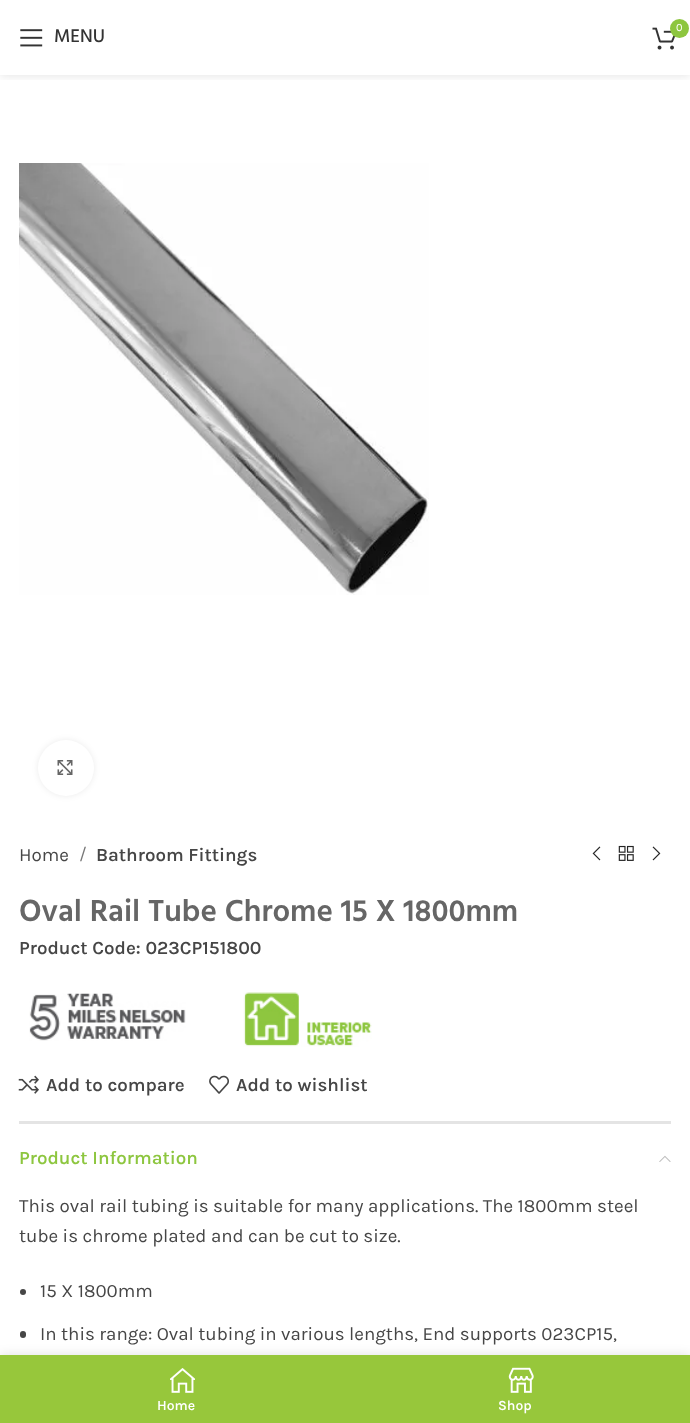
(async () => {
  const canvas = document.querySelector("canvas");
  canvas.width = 690;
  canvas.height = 1423;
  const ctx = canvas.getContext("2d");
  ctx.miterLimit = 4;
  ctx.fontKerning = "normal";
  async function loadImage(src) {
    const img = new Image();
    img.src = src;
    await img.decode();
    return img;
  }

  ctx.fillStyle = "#ffffff";
  ctx.fillRect(0, 0, 690, 1423);
  ctx.save();
  ctx.beginPath();
  ctx.rect(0, 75, 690, 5);
  ctx.clip();
  ctx.fillStyle = "rgba(0, 0, 0, 0.1)";
  ctx.filter = "blur(5px)";
  ctx.beginPath();
  ctx.rect(0, 1, 690, 75);
  ctx.fill();
  ctx.filter = "none";
  ctx.restore();
  ctx.drawImage(await loadImage("img/1.png"), 652, 27, 24, 23);
  ctx.fillStyle = "#8dc63f";
  ctx.beginPath();
  ctx.arc(679.5, 28.5, 9.5, 0, Math.PI * 2);
  ctx.fill();
  ctx.drawImage(await loadImage("img/2.png"), 20, 29, 23, 18);
  ctx.drawImage(await loadImage("img/3.png"), 19, 163, 410, 432);
  ctx.fillStyle = "rgba(0, 0, 0, 0.08)";
  ctx.filter = "blur(3px)";
  ctx.beginPath();
  ctx.roundRect(38, 740, 56, 56, 28);
  ctx.fill();
  ctx.filter = "none";
  ctx.fillStyle = "#ffffff";
  ctx.beginPath();
  ctx.arc(66, 768, 28, 0, Math.PI * 2);
  ctx.fill();
  ctx.drawImage(await loadImage("img/4.png"), 57, 760, 16, 15);
  ctx.drawImage(await loadImage("img/5.png"), 592, 846, 9, 15);
  ctx.drawImage(await loadImage("img/6.png"), 618, 845, 16, 16);
  ctx.drawImage(await loadImage("img/7.png"), 652, 846, 9, 15);
  ctx.drawImage(await loadImage("img/8.png"), 29, 993, 157, 48);
  ctx.drawImage(await loadImage("img/9.png"), 243, 992, 129, 55);
  ctx.drawImage(await loadImage("img/10.png"), 18, 1075, 21, 19);
  ctx.drawImage(await loadImage("img/11.png"), 209, 1075, 20, 19);
  ctx.fillStyle = "#e4e4e4";
  ctx.fillRect(19, 1121, 652, 3);
  ctx.drawImage(await loadImage("img/12.png"), 659, 1155, 12, 7);
  ctx.fillStyle = "#464646";
  ctx.beginPath();
  ctx.arc(23, 1292, 3, 0, Math.PI * 2);
  ctx.fill();
  ctx.beginPath();
  ctx.roundRect(20, 1331, 6, 7, 3);
  ctx.fill();
  ctx.fillStyle = "rgba(0, 0, 0, 0.12)";
  ctx.filter = "blur(5.5px)";
  ctx.beginPath();
  ctx.rect(0, 1355, 690, 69);
  ctx.fill();
  ctx.filter = "none";
  ctx.fillStyle = "#97c73b";
  ctx.fillRect(0, 1355, 690, 68);
  ctx.drawImage(await loadImage("img/13.png"), 170, 1368, 25, 25);
  ctx.drawImage(await loadImage("img/14.png"), 508, 1367, 26, 26);
  ctx.font = "11px Karla";
  ctx.fillStyle = "#ffffff";
  ctx.fillText("0", 676, 31);
  ctx.font = "500 18.75px Hind";
  ctx.fillStyle = "#333333";
  ctx.fillText("MENU", 54, 42);
  ctx.font = "18.75px Karla";
  ctx.fillStyle = "#464646";
  ctx.fillText("Home", 19, 861);
  ctx.font = "18px Karla";
  ctx.fillStyle = "#777777";
  ctx.fillText("/", 79, 860);
  ctx.font = "600 18.75px Karla";
  ctx.fillStyle = "#464646";
  ctx.fillText("Bathroom Fittings", 96, 861);
  ctx.font = "600 31.25px Hind";
  ctx.fillStyle = "#666666";
  ctx.fillText("Oval Rail Tube Chrome 15 X 1800mm", 19, 921);
  ctx.font = "600 18.75px Karla";
  ctx.fillStyle = "#464646";
  for (const [text, x, y] of [
    ["Product Code: 023CP151800", 19, 954],
    ["Add to compare", 46, 1091],
    ["Add to wishlist", 236, 1091],
  ]) {
    ctx.fillText(text, x, y);
  }
  ctx.fillStyle = "#8dc63f";
  ctx.fillText("Product Information", 19, 1164);
  ctx.font = "18.75px Karla";
  ctx.fillStyle = "#464646";
  for (const [text, x, y] of [
    ["This oval rail tubing is suitable for many applications. The 1800mm steel", 19, 1212],
    ["tube is chrome plated and can be cut to size.", 19, 1242],
    ["15 X 1800mm", 40, 1297],
    ["In this range: Oval tubing in various lengths, End supports 023CP15,", 40, 1340],
  ]) {
    ctx.fillText(text, x, y);
  }
  ctx.font = "600 14px Karla";
  ctx.fillStyle = "#ffffff";
  ctx.fillText("Home", 157, 1410);
  ctx.fillText("Shop", 498, 1410);
})();
